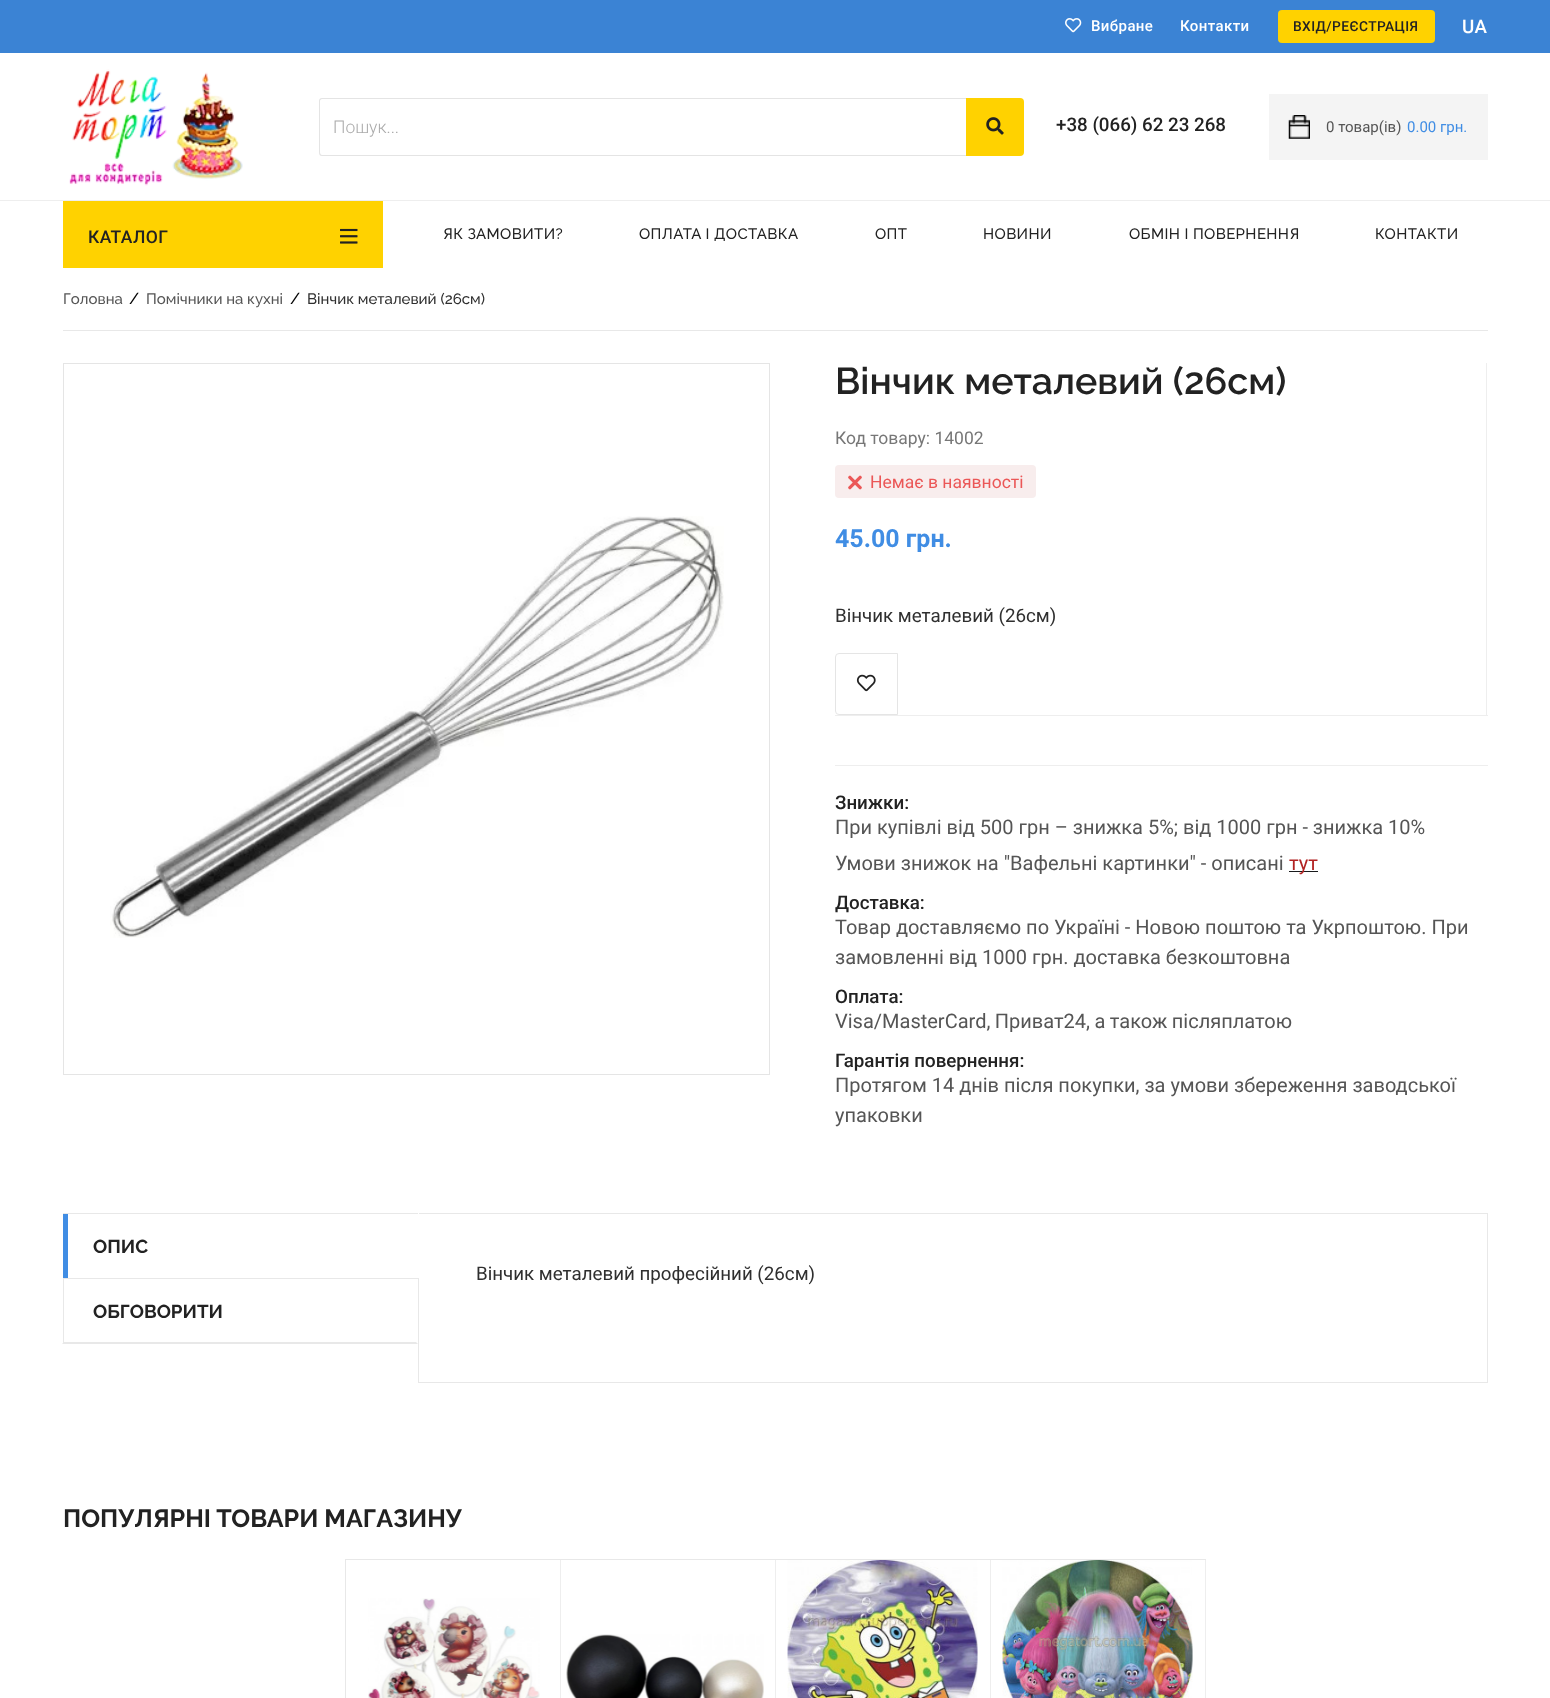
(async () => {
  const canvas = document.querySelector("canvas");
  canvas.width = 1550;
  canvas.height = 1698;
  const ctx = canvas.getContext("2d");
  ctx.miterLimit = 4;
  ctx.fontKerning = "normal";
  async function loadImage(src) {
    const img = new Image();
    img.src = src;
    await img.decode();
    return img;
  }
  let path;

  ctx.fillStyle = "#ffffff";
  ctx.fillRect(0, 0, 1550, 1698);
  ctx.fillStyle = "#3b83d4";
  ctx.fillRect(0, 0, 1550, 53);
  ctx.drawImage(await loadImage("img/1.png"), 1065, 18, 17, 15);
  ctx.fillStyle = "#ffd200";
  ctx.beginPath();
  ctx.roundRect(1278, 10, 157, 33, 4);
  ctx.fill();
  ctx.fillStyle = "#eeeeee";
  ctx.fillRect(0, 200, 1550, 1);
  ctx.drawImage(await loadImage("img/2.png"), 69, 69, 174, 117);
  ctx.fillStyle = "#e4e4e4";
  path = new Path2D("M322 98H966V156H322C320 156 319 155 319 152V101C319 99 320 98 322 98ZM322 99H966V155H322C321 155 320 154 320 152V101C320 100 321 99 322 99Z");
  ctx.fill(path, "evenodd");
  ctx.fillStyle = "#ffd200";
  ctx.beginPath();
  ctx.roundRect(966, 98, 58, 58, [0, 4, 4, 0]);
  ctx.fill();
  ctx.drawImage(await loadImage("img/3.png"), 986, 117, 18, 18);
  ctx.fillStyle = "#f4f4f4";
  ctx.fillRect(1269, 94, 219, 66);
  ctx.drawImage(await loadImage("img/4.png"), 1288, 115, 22, 24);
  ctx.fillStyle = "#ffd200";
  ctx.fillRect(63, 201, 320, 67);
  ctx.drawImage(await loadImage("img/5.png"), 340, 228, 18, 16);
  ctx.fillStyle = "#e8e8e8";
  ctx.fillRect(63, 330, 1425, 1);
  ctx.strokeStyle = "#e5e5e5";
  ctx.strokeRect(63.5, 363.5, 706, 711);
  ctx.drawImage(await loadImage("img/6.png"), 110, 516, 614, 422);
  ctx.fillStyle = "#eeeeee";
  ctx.fillRect(1486, 363, 1, 353);
  ctx.fillRect(835, 715, 653, 1);
  ctx.fillStyle = "#f8eded";
  ctx.beginPath();
  ctx.roundRect(835, 465, 201, 33, 4);
  ctx.fill();
  ctx.drawImage(await loadImage("img/7.png"), 848, 475, 14, 15);
  ctx.beginPath();
  ctx.roundRect(835.5, 653.5, 62, 61, [3.5, 0, 0, 3.5]);
  ctx.stroke();
  ctx.drawImage(await loadImage("img/8.png"), 856, 674, 20, 18);
  ctx.fillStyle = "#eeeeee";
  ctx.fillRect(835, 765, 653, 1);
  ctx.fillStyle = "#191a1c";
  ctx.fillRect(1289, 871, 29, 1);
  ctx.strokeStyle = "#e8e8e8";
  ctx.strokeRect(418.5, 1213.5, 1069, 169);
  for (const [x, y, w, h, color] of [
    [63, 1213, 356, 1, "#e8e8e8"],
    [418, 1213, 1, 66, "#ffffff"],
    [63, 1278, 356, 1, "#e8e8e8"],
    [63, 1213, 1, 66, "#e8e8e8"],
    [63, 1214, 5, 64, "#408de4"],
  ]) {
    ctx.fillStyle = color;
    ctx.fillRect(x, y, w, h);
  }
  ctx.fillStyle = "#e8e8e8";
  path = new Path2D("M418 1344H62L64 1342H416Z");
  ctx.fill(path);
  for (const [x, y, w, h, color] of [
    [63, 1279, 1, 65, "#e8e8e8"],
    [345, 1559, 861, 1, "#e8e8e8"],
    [345, 1559, 1, 139, "#e8e8e8"],
    [560, 1560, 1, 138, "#eeeeee"],
  ]) {
    ctx.fillStyle = color;
    ctx.fillRect(x, y, w, h);
  }
  ctx.drawImage(await loadImage("img/9.png"), 368, 1598, 172, 100);
  ctx.fillRect(775, 1560, 1, 138);
  ctx.drawImage(await loadImage("img/10.png"), 566, 1634, 198, 64);
  ctx.fillRect(990, 1560, 1, 138);
  ctx.drawImage(await loadImage("img/11.png"), 787, 1560, 191, 138);
  ctx.fillRect(1205, 1560, 1, 138);
  ctx.drawImage(await loadImage("img/12.png"), 1002, 1560, 191, 138);
  ctx.letterSpacing = "0.4px";
  ctx.font = "500 15px Roboto";
  ctx.fillStyle = "#ffffff";
  ctx.fillText("Вибране", 1091, 31);
  ctx.fillText("Контакти", 1180, 31);
  ctx.font = "500 13.75px Roboto";
  ctx.fillStyle = "#222222";
  ctx.fillText("ВХІД/РЕЄСТРАЦІЯ", 1293, 31);
  ctx.font = "500 18.75px Roboto";
  ctx.fillStyle = "#ffffff";
  ctx.fillText("UA", 1462, 33);
  ctx.letterSpacing = "0px";
  ctx.font = "300 17.5px Roboto";
  ctx.fillStyle = "#aaaaaa";
  ctx.fillText("Пошук...", 333, 133);
  ctx.font = "500 18.75px Roboto";
  ctx.fillStyle = "#222222";
  ctx.fillText("+38 (066) 62 23 268", 1056, 131);
  ctx.font = "15px Roboto";
  ctx.fillStyle = "#555555";
  ctx.fillText("0 товар(ів)", 1326, 132);
  ctx.fillStyle = "#408de4";
  ctx.fillText("0.00 грн.", 1407, 132);
  ctx.letterSpacing = "0.4px";
  ctx.font = "500 17.5px Roboto";
  ctx.fillStyle = "#222222";
  ctx.fillText("КАТАЛОГ", 88, 243);
  ctx.font = "500 15px Raleway";
  for (const [text, x, y] of [
    ["ЯК ЗАМОВИТИ?", 443, 239],
    ["ОПЛАТА І ДОСТАВКА", 639, 239],
    ["ОПТ", 875, 239],
    ["НОВИНИ", 983, 239],
    ["ОБМІН І ПОВЕРНЕННЯ", 1129, 239],
    ["КОНТАКТИ", 1375, 239],
  ]) {
    ctx.fillText(text, x, y);
  }
  ctx.letterSpacing = "0px";
  ctx.fillStyle = "#555555";
  ctx.fillText("Головна", 63, 304);
  ctx.font = "500 16px Raleway";
  ctx.fillStyle = "#000000";
  ctx.fillText("/", 129, 304);
  ctx.font = "500 15px Raleway";
  ctx.fillStyle = "#555555";
  ctx.fillText("Помічники на кухні", 146, 304);
  ctx.font = "500 16px Raleway";
  ctx.fillStyle = "#000000";
  ctx.fillText("/", 290, 304);
  ctx.font = "500 15px Raleway";
  ctx.fillStyle = "#2f2f2f";
  ctx.fillText("Вінчик металевий (26см)", 307, 304);
  ctx.font = "600 37.5px Raleway";
  ctx.fillStyle = "#222222";
  ctx.fillText("Вінчик металевий (26см)", 835, 394);
  ctx.font = "17.5px Roboto";
  ctx.fillStyle = "#777777";
  ctx.fillText("Код товару: 14002", 835, 444);
  ctx.fillStyle = "#eb5757";
  ctx.fillText("Немає в наявності", 870, 488);
  ctx.font = "bold 25px Roboto";
  ctx.fillStyle = "#408de4";
  ctx.fillText("45.00 грн.", 835, 547);
  ctx.font = "18.75px Roboto";
  ctx.fillStyle = "#2f2f2f";
  ctx.fillText("Вінчик металевий (26см)", 835, 622);
  ctx.font = "500 18.75px Roboto";
  ctx.fillStyle = "#222222";
  ctx.fillText("Знижки:", 835, 809);
  ctx.font = "20px Roboto";
  ctx.fillStyle = "#555555";
  ctx.fillText("При купівлі від 500 грн – знижка 5%; від 1000 грн - знижка 10%", 835, 834);
  ctx.fillText("Умови знижок на \"Вафельні картинки\" - описані", 835, 870);
  ctx.fillStyle = "#b22222";
  ctx.fillText("тут", 1289, 870);
  ctx.font = "500 18.75px Roboto";
  ctx.fillStyle = "#222222";
  ctx.fillText("Доставка:", 835, 909);
  ctx.font = "20px Roboto";
  ctx.fillStyle = "#555555";
  ctx.fillText("Товар доставляємо по Україні - Новою поштою та Укрпоштою. При", 835, 934);
  ctx.fillText("замовленні від 1000 грн. доставка безкоштовна", 835, 964);
  ctx.font = "500 18.75px Roboto";
  ctx.fillStyle = "#222222";
  ctx.fillText("Оплата:", 835, 1003);
  ctx.wordSpacing = "-0.5px";
  ctx.font = "20px Roboto";
  ctx.fillStyle = "#555555";
  ctx.fillText("Visa/MasterCard, Приват24, а також післяплатою", 835, 1028);
  ctx.wordSpacing = "0px";
  ctx.font = "500 18.75px Roboto";
  ctx.fillStyle = "#222222";
  ctx.fillText("Гарантія повернення:", 835, 1067);
  ctx.font = "20px Roboto";
  ctx.fillStyle = "#555555";
  ctx.fillText("Протягом 14 днів після покупки, за умови збереження заводської", 835, 1092);
  ctx.fillText("упаковки", 835, 1122);
  ctx.font = "bold 18.75px Raleway";
  ctx.fillStyle = "#222222";
  ctx.fillText("ОПИС", 93, 1253);
  ctx.fillText("ОБГОВОРИТИ", 93, 1318);
  ctx.font = "18.75px Roboto";
  ctx.fillStyle = "#2f2f2f";
  ctx.fillText("Вінчик металевий професійний (26см)", 476, 1280);
  ctx.font = "bold 25px Raleway";
  ctx.fillStyle = "#222222";
  ctx.fillText("ПОПУЛЯРНІ ТОВАРИ МАГАЗИНУ", 63, 1527);
})();
